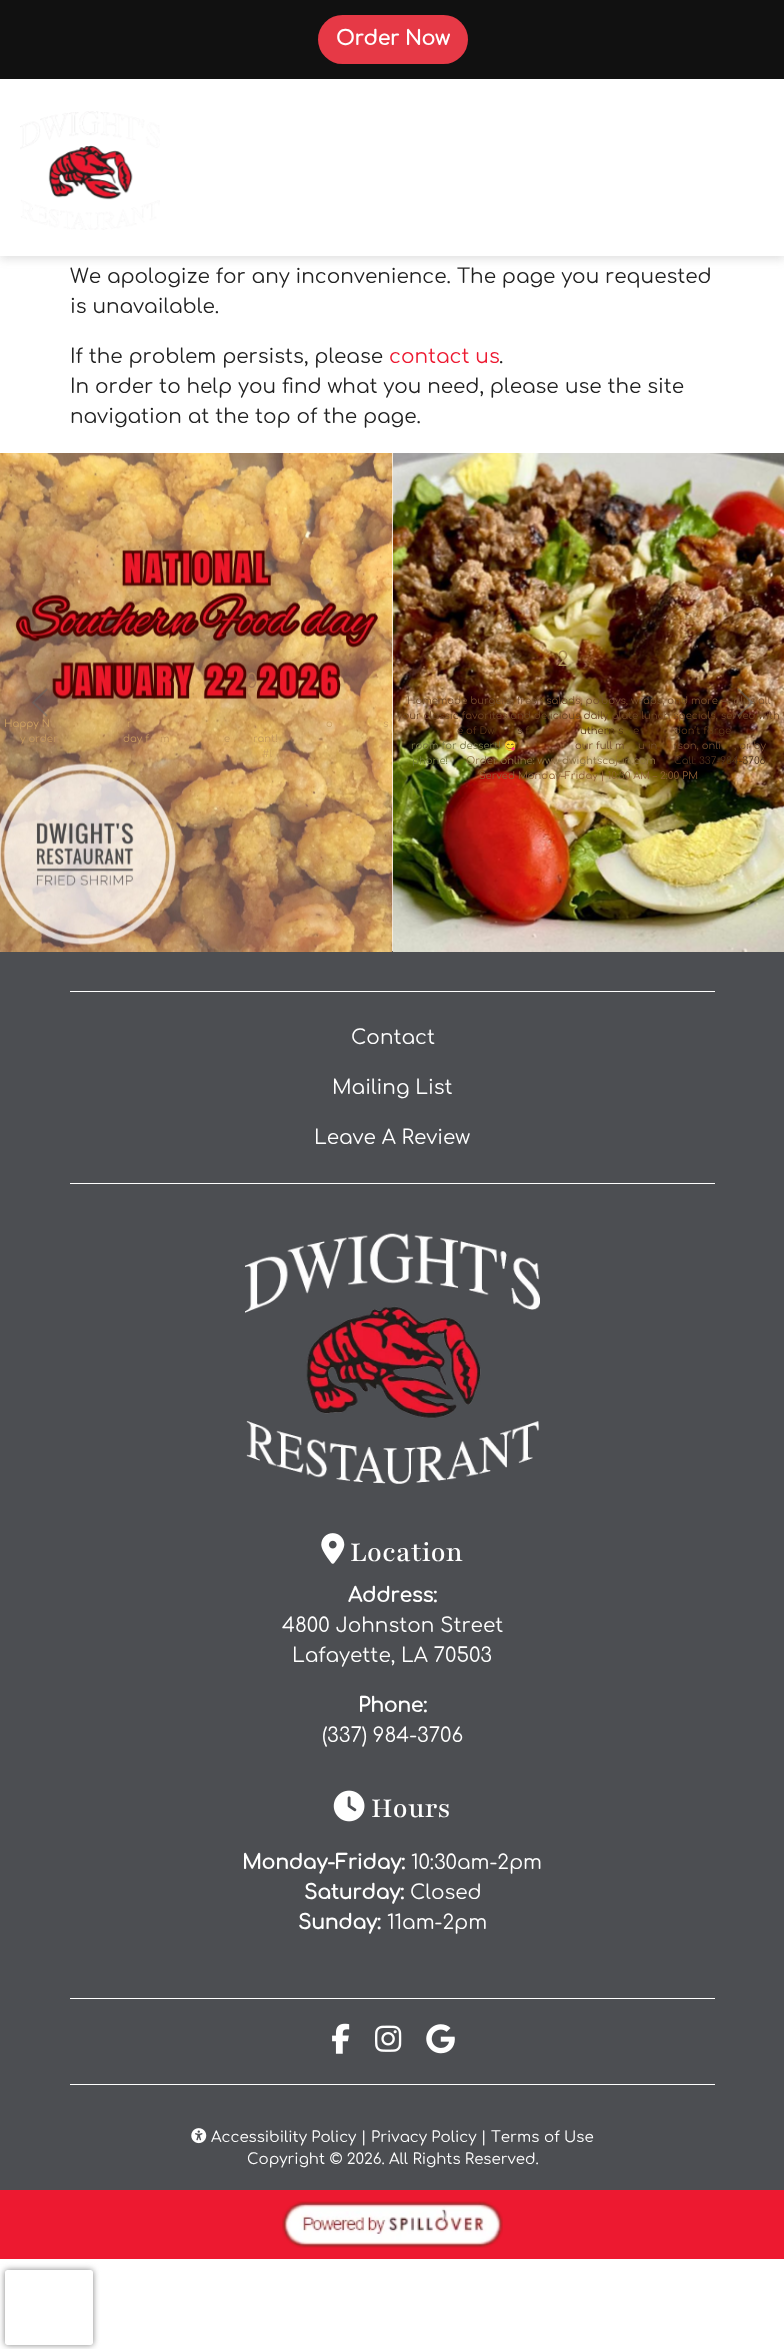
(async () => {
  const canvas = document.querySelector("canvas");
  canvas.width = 784;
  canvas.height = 2349;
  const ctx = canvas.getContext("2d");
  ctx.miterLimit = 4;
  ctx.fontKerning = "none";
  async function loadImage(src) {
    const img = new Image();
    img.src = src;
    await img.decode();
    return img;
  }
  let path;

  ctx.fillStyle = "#ffffff";
  ctx.fillRect(0, 0, 784, 2349);
  ctx.fillStyle = "rgba(99, 99, 99, 0.2)";
  ctx.filter = "blur(5px)";
  ctx.beginPath();
  ctx.rect(0, 3, 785, 256);
  ctx.fill();
  ctx.filter = "none";
  ctx.fillStyle = "#ffffff";
  ctx.fillRect(0, 79, 784, 177);
  ctx.fillStyle = "#111111";
  ctx.fillRect(0, 0, 784, 79);
  ctx.fillStyle = "#e63946";
  ctx.beginPath();
  ctx.roundRect(318, 15, 150, 49, 24.5);
  ctx.fill();
  ctx.drawImage(await loadImage("img/1.png"), 20, 111, 140, 119);
  ctx.fillStyle = "#4c4e52";
  ctx.fillRect(0, 951, 784, 1239);
  ctx.drawImage(await loadImage("img/2.png"), 0, 453, 393, 499);
  ctx.drawImage(await loadImage("img/3.png"), 393, 453, 391, 499);
  path = new Path2D("M47 689L33 702.5L47 716");
  ctx.strokeStyle = "rgba(102, 102, 102, 0.5)";
  ctx.lineWidth = 1.8;
  ctx.stroke(path);
  ctx.fillStyle = "#ffffff";
  ctx.fillRect(70, 991, 645, 1);
  ctx.fillRect(70, 1183, 645, 1);
  ctx.drawImage(await loadImage("img/4.png"), 245, 1233, 295, 251);
  ctx.drawImage(await loadImage("img/5.png"), 321, 1533, 24, 31);
  ctx.drawImage(await loadImage("img/6.png"), 333, 1790, 32, 32);
  ctx.fillRect(70, 1998, 645, 1);
  ctx.drawImage(await loadImage("img/7.png"), 332, 2023, 18, 31);
  ctx.drawImage(await loadImage("img/8.png"), 375, 2025, 27, 27);
  ctx.drawImage(await loadImage("img/9.png"), 426, 2024, 29, 30);
  ctx.fillRect(70, 2084, 645, 1);
  ctx.drawImage(await loadImage("img/10.png"), 191, 2128, 16, 16);
  ctx.fillStyle = "#ed1930";
  ctx.fillRect(0, 2190, 784, 69);
  ctx.drawImage(await loadImage("img/11.png"), 282, 2201, 221, 47);
  ctx.save();
  path = new Path2D("M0 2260H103V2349H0ZM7.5 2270H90.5C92 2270 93 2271 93 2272.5V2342.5C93 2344 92 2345 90.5 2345H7.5C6 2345 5 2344 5 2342.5V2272.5C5 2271 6 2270 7.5 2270Z");
  ctx.clip(path, "evenodd");
  ctx.fillStyle = "#808080";
  ctx.filter = "blur(3px)";
  ctx.beginPath();
  ctx.roundRect(5, 2270, 88, 75, 2.5);
  ctx.fill();
  ctx.filter = "none";
  ctx.restore();
  ctx.font = "bold 20px Comfortaa";
  ctx.fillStyle = "#ffffff";
  ctx.fillText("Order Now", 336, 45);
  ctx.font = "20px Comfortaa";
  ctx.fillStyle = "#222222";
  for (const [text, x, y] of [
    ["We apologize for any inconvenience.", 70, 283],
    ["The page you requested", 457, 283],
    ["is unavailable.", 70, 313],
    ["If the problem persists, please", 70, 363],
  ]) {
    ctx.fillText(text, x, y);
  }
  ctx.fillStyle = "#ed1930";
  ctx.fillText("contact us", 389, 363);
  ctx.fillStyle = "#222222";
  for (const [text, x, y] of [
    [".", 499, 363],
    ["In order to help you find what you need, please", 70, 393],
    ["use the site", 565, 393],
    ["navigation at the top of the page.", 70, 423],
  ]) {
    ctx.fillText(text, x, y);
  }
  ctx.fillStyle = "#a97a55";
  ctx.fillText("0", 246, 688);
  ctx.font = "10px Comfortaa";
  ctx.fillStyle = "#cda161";
  for (const [text, x, y] of [
    ["Happy N", 4, 727],
    ["r", 127, 727],
    ["o", 326, 727],
    ["s", 383, 727],
  ]) {
    ctx.fillText(text, x, y);
  }
  ctx.fillStyle = "#c4985e";
  for (const [text, x, y] of [
    ["y order", 20, 742],
    ["day f", 123, 742],
    ["m", 160, 742],
    ["e", 224, 742],
    ["rant!", 253, 742],
  ]) {
    ctx.fillText(text, x, y);
  }
  ctx.fillStyle = "#cda161";
  ctx.fillText("#l", 262, 757);
  ctx.font = "20px Comfortaa";
  ctx.fillStyle = "#aa8f54";
  ctx.fillText("2", 557, 666);
  ctx.font = "10px Comfortaa";
  ctx.fillStyle = "#754f2e";
  ctx.fillText("Homemade burgers, fresh salads, po’boys, wraps, and more — plus all", 407, 704);
  ctx.fillStyle = "#6d4524";
  ctx.fillText("your classic favorites and delicious daily plate lunch specials, served with", 397, 719);
  ctx.fillStyle = "#593718";
  for (const [text, x, y] of [
    ["e of Dw", 457, 734],
    ["s f", 517, 734],
    ["uthern s", 580, 734],
    ["e", 633, 734],
    ["don’t forge", 674, 734],
  ]) {
    ctx.fillText(text, x, y);
  }
  ctx.fillStyle = "#787647";
  ctx.fillText("room for dessert!", 411, 749);
  ctx.font = "10px Noto Color Emoji";
  ctx.fillStyle = "#95852d";
  ctx.fillText("😋", 504, 749);
  ctx.font = "10px Comfortaa";
  ctx.fillStyle = "#754f2e";
  for (const [text, x, y] of [
    ["our full m", 575, 749],
    ["u in", 638, 749],
    ["rson, onli", 673, 749],
    [", or by", 734, 749],
  ]) {
    ctx.fillText(text, x, y);
  }
  ctx.fillStyle = "#757d3d";
  ctx.fillText("phone!", 412, 764);
  ctx.fillStyle = "#8c7143";
  ctx.fillText("Order online: www.dwightscajun.com", 466, 764);
  ctx.fillStyle = "#4d331e";
  ctx.fillText("Call: 337-984-3706", 674, 764);
  ctx.fillStyle = "#906135";
  ctx.fillText("Served Monday–Friday | 10:30 AM – 2:00 PM", 479, 779);
  path = new Path2D("M738 716L752 702.5L738 689");
  ctx.stroke(path);
  ctx.font = "20px Comfortaa";
  ctx.fillStyle = "#ffffff";
  for (const [text, x, y] of [
    ["Contact", 351, 1044],
    ["Mailing List", 332, 1094],
    ["Leave A Review", 314, 1144],
  ]) {
    ctx.fillText(text, x, y);
  }
  ctx.font = "500 30.5px 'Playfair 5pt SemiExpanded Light'";
  ctx.fillText("Location", 350, 1561);
  ctx.font = "bold 20px Comfortaa";
  ctx.fillText("Address:", 348, 1602);
  ctx.font = "20px Comfortaa";
  ctx.fillText("4800 Johnston Street", 282, 1632);
  ctx.fillText("Lafayette, LA 70503", 292, 1662);
  ctx.font = "bold 20px Comfortaa";
  ctx.fillText("Phone:", 358, 1712);
  ctx.font = "20px Comfortaa";
  ctx.fillText("(337) 984-3706", 322, 1742);
  ctx.font = "500 30.5px 'Playfair 5pt SemiExpanded Light'";
  ctx.fillText("Hours", 371, 1817);
  ctx.font = "bold 20px Comfortaa";
  ctx.fillText("Monday-Friday:", 242, 1869);
  ctx.font = "20px Comfortaa";
  ctx.fillText("10:30am-2pm", 411, 1869);
  ctx.font = "bold 20px Comfortaa";
  ctx.fillText("Saturday:", 304, 1899);
  ctx.font = "20px Comfortaa";
  ctx.fillText("Closed", 410, 1899);
  ctx.font = "bold 20px Comfortaa";
  ctx.fillText("Sunday:", 298, 1929);
  ctx.font = "20px Comfortaa";
  ctx.fillText("11am-2pm", 387, 1929);
  ctx.font = "15px Comfortaa";
  ctx.fillText("Accessibility Policy | Privacy Policy | Terms", 211, 2142);
  ctx.fillText("of Use", 544, 2142);
  ctx.fillText("Copyright © 2026. All Rights Reserved.", 247, 2164);
})();
